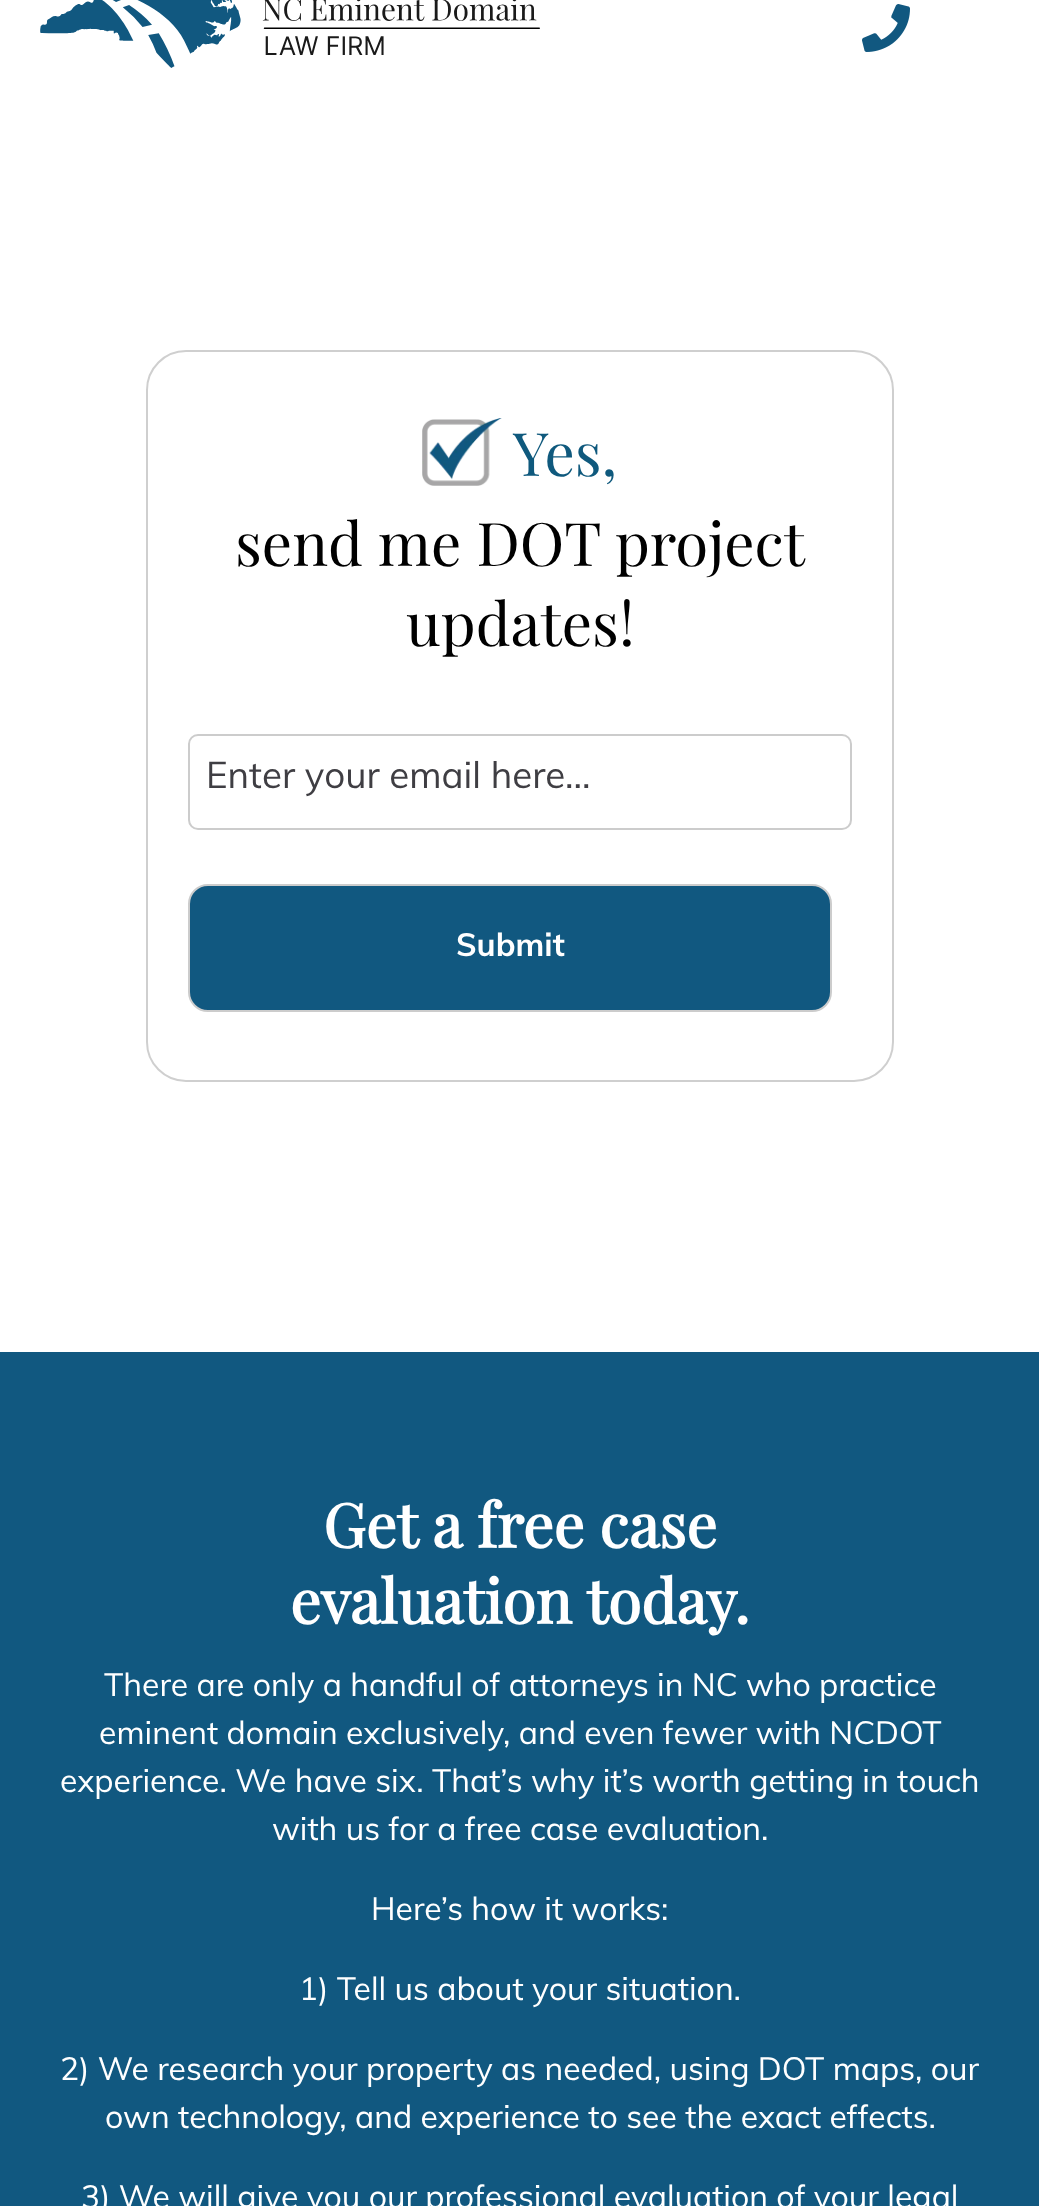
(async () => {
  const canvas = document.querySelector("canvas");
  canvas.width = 1039;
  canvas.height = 2206;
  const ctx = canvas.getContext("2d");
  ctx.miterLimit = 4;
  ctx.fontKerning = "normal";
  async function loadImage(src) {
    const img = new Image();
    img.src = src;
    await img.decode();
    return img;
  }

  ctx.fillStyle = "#ffffff";
  ctx.fillRect(0, 0, 1039, 2206);
  ctx.drawImage(await loadImage("img/1.png"), 40, 0, 500, 68);
  ctx.drawImage(await loadImage("img/2.png"), 862, 4, 48, 48);
  ctx.beginPath();
  ctx.roundRect(147, 351, 746, 730, 39);
  ctx.strokeStyle = "#cfcfcf";
  ctx.lineWidth = 2;
  ctx.stroke();
  ctx.drawImage(await loadImage("img/3.png"), 422, 418, 80, 68);
  ctx.beginPath();
  ctx.roundRect(189, 735, 662, 94, 9);
  ctx.strokeStyle = "#cccccc";
  ctx.stroke();
  ctx.fillStyle = "#115880";
  ctx.beginPath();
  ctx.roundRect(189, 885, 642, 126, 19);
  ctx.fill();
  ctx.stroke();
  ctx.fillRect(0, 1352, 1039, 854);
  ctx.font = "60px Playfair Display";
  ctx.fillStyle = "#0f597d";
  ctx.fillText("Yes,", 513, 476);
  ctx.fillStyle = "#000000";
  ctx.fillText("send me DOT project", 235, 566);
  ctx.fillText("updates!", 406, 646);
  ctx.font = "36.75px Muli";
  ctx.fillStyle = "#3f3e43";
  ctx.fillText("Enter your email here...", 206, 788);
  ctx.font = "bold 32px Muli";
  ctx.fillStyle = "#ffffff";
  ctx.fillText("Submit", 456, 956);
  ctx.font = "bold 60.75px Playfair Display";
  ctx.fillText("Get a free case", 323, 1548);
  ctx.fillText("evaluation today.", 290, 1624);
  ctx.font = "32px Muli";
  for (const [text, x, y] of [
    ["There are only a handful of attorneys in NC who practice", 104, 1696],
    ["eminent domain exclusively, and even fewer with NCDOT", 99, 1744],
    ["experience. We have six. That’s why it’s worth getting in touch", 60, 1792],
    ["with us for a free case evaluation.", 272, 1840],
    ["Here’s how it works:", 371, 1920],
    ["1) Tell us about your situation.", 299, 2000],
    ["2) We research your property as needed, using DOT maps, our", 60, 2080],
    ["own technology, and experience to see the exact effects.", 105, 2128],
    ["3) We will give you our professional evaluation of your legal", 81, 2208],
  ]) {
    ctx.fillText(text, x, y);
  }
})();
